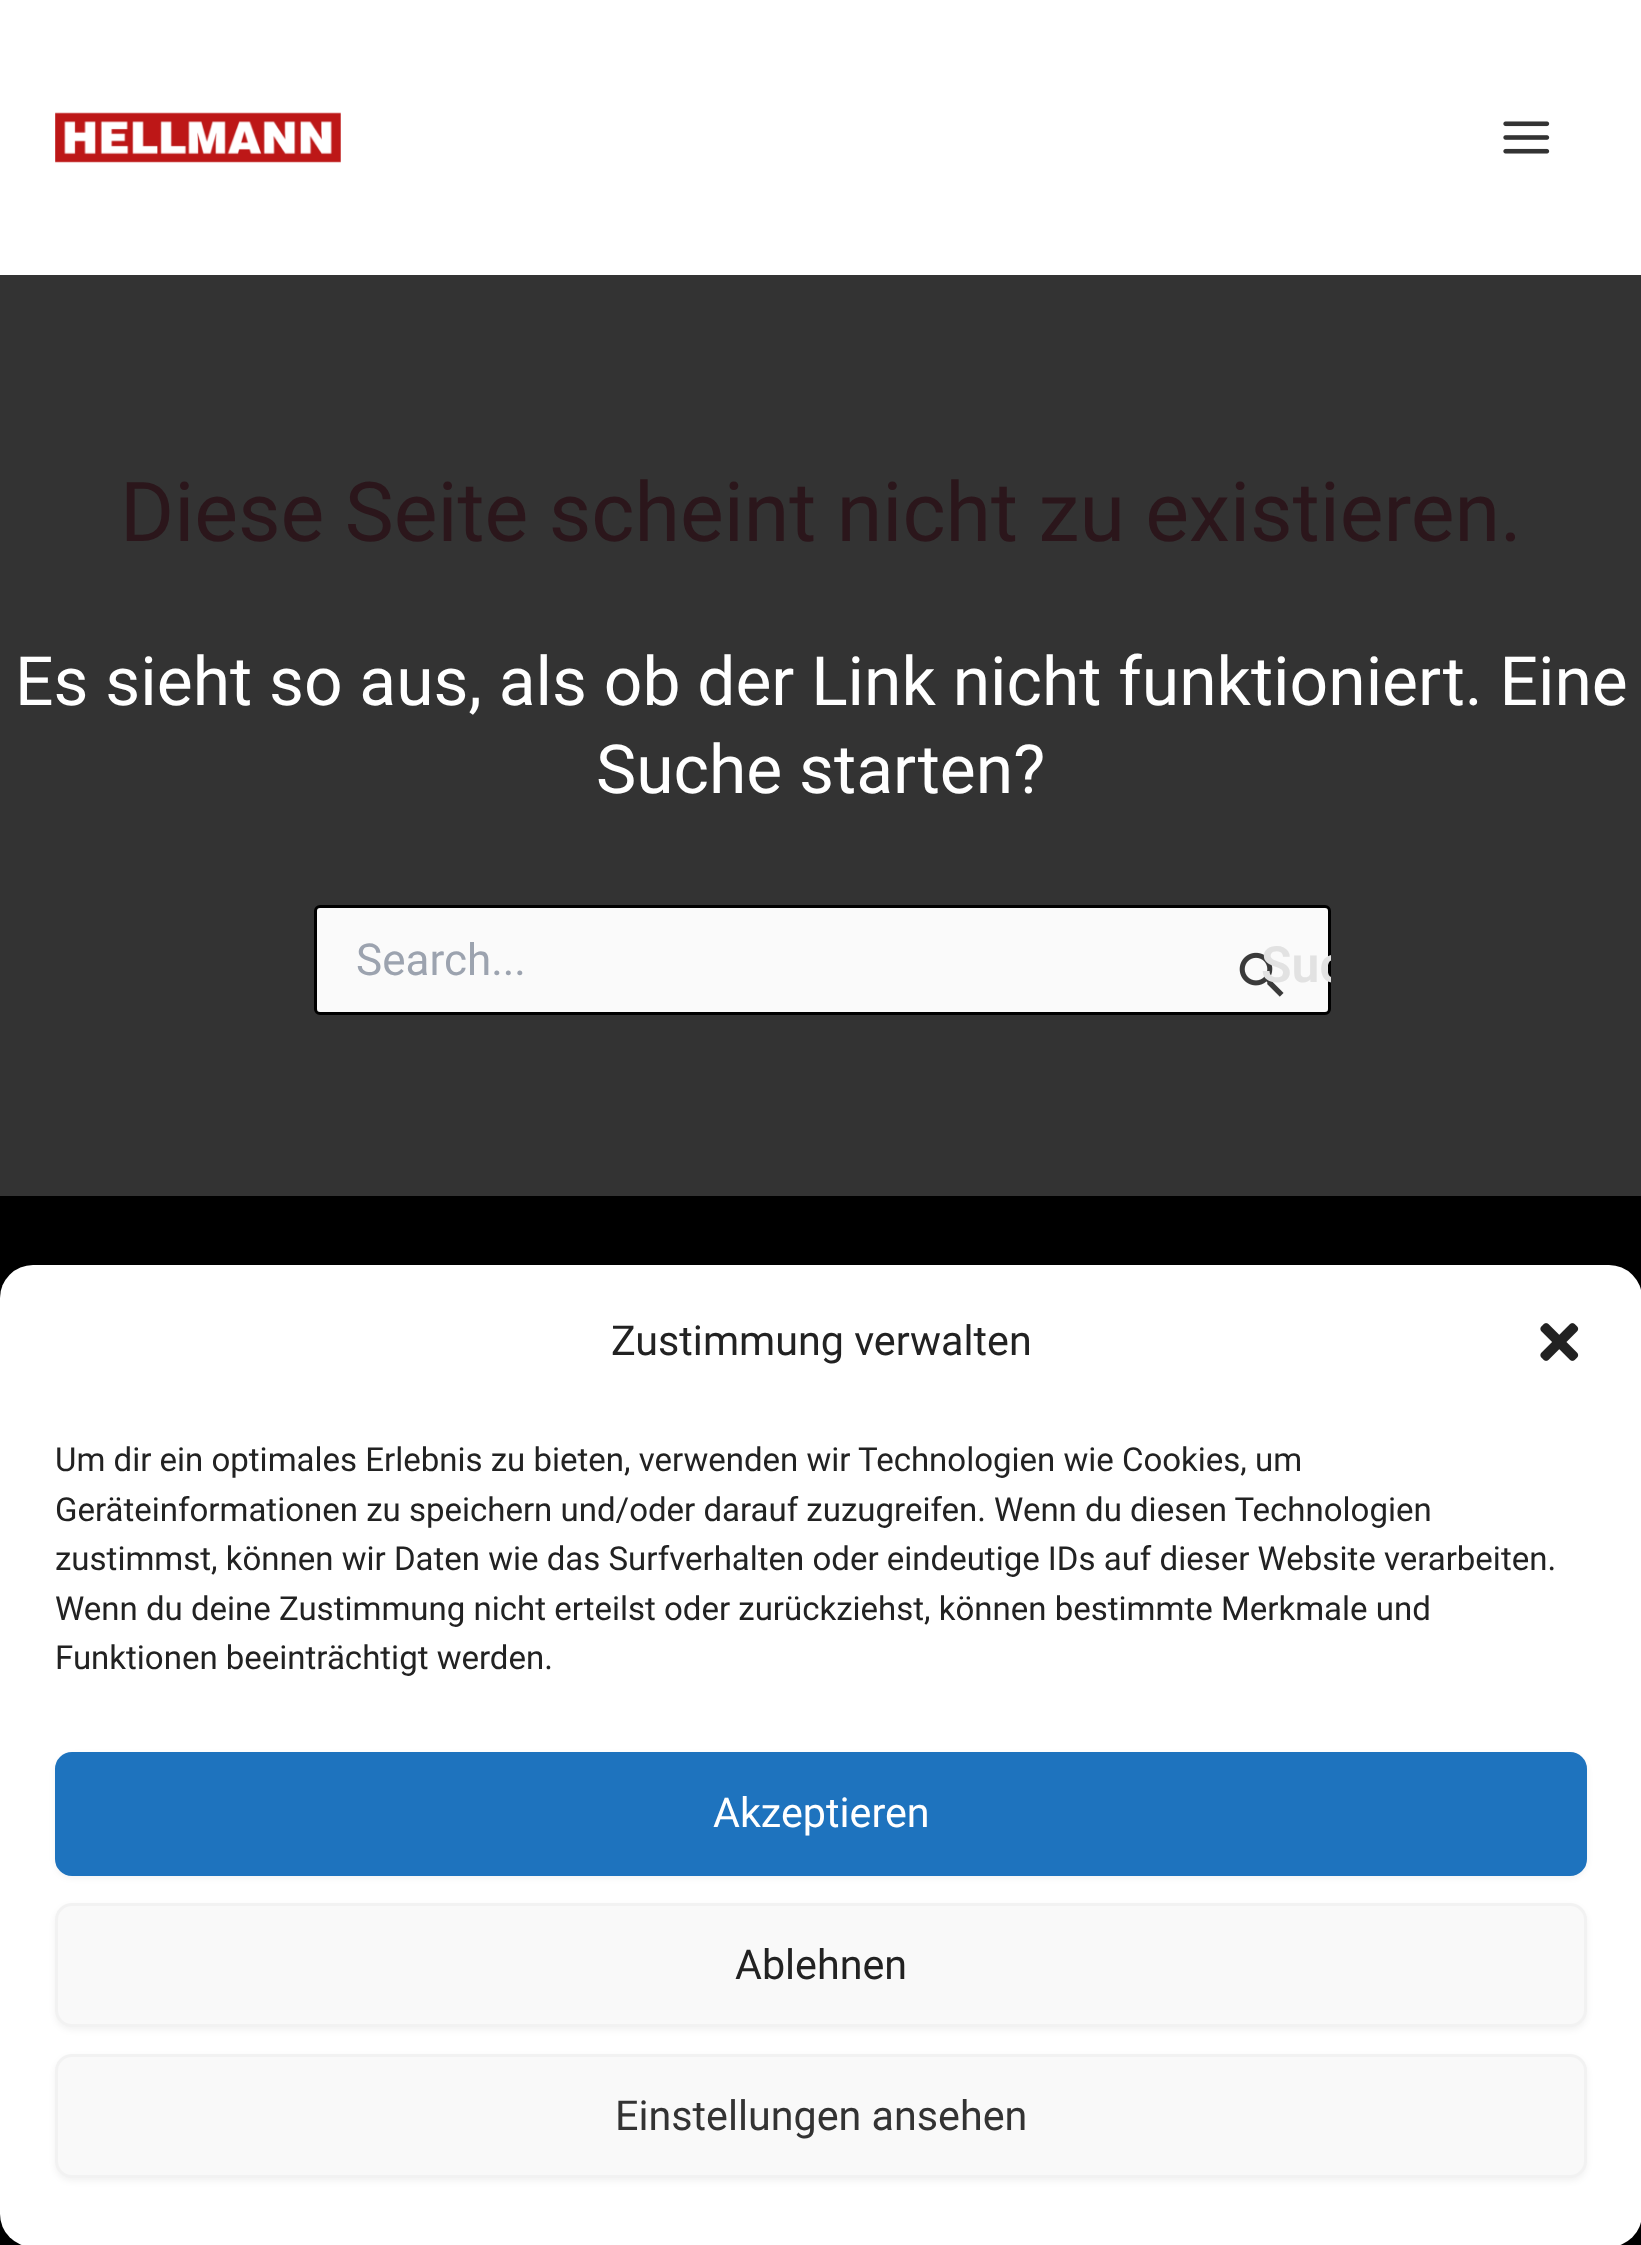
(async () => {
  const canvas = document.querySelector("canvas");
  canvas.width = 1641;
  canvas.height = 2245;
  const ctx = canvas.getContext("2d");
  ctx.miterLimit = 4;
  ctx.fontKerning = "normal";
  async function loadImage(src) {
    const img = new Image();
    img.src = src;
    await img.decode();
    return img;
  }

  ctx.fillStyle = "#333333";
  ctx.fillRect(0, 0, 1641, 2245);
  ctx.fillStyle = "#ffffff";
  ctx.fillRect(0, 0, 1641, 275);
  ctx.drawImage(await loadImage("img/1.png"), 55, 112, 286, 51);
  ctx.drawImage(await loadImage("img/2.png"), 1503, 121, 47, 33);
  ctx.fillStyle = "#fafafa";
  ctx.beginPath();
  ctx.roundRect(315.5, 906.5, 1014, 107, 4.5);
  ctx.fill();
  ctx.strokeStyle = "#000000";
  ctx.lineWidth = 3;
  ctx.stroke();
  ctx.drawImage(await loadImage("img/3.png"), 1239, 952, 45, 45);
  ctx.fillStyle = "#000000";
  ctx.fillRect(0, 1196, 1641, 1049);
  ctx.fillStyle = "#ffffff";
  ctx.beginPath();
  ctx.roundRect(0, 1265, 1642, 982, 33);
  ctx.fill();
  ctx.drawImage(await loadImage("img/4.png"), 1540, 1323, 39, 38);
  ctx.fillStyle = "rgba(0, 0, 0, 0.05)";
  ctx.filter = "blur(3px)";
  ctx.beginPath();
  ctx.roundRect(55, 1755, 1532, 123, 17);
  ctx.fill();
  ctx.filter = "none";
  ctx.fillStyle = "#1e73be";
  ctx.beginPath();
  ctx.roundRect(56.5, 1753.5, 1529, 121, 15.5);
  ctx.fill();
  ctx.strokeStyle = "#1e73be";
  ctx.stroke();
  ctx.fillStyle = "rgba(0, 0, 0, 0.05)";
  ctx.filter = "blur(3px)";
  ctx.beginPath();
  ctx.roundRect(55, 1906, 1532, 124, 17);
  ctx.fill();
  ctx.filter = "none";
  ctx.fillStyle = "#f9f9f9";
  ctx.beginPath();
  ctx.roundRect(56.5, 1904.5, 1529, 121, 15.5);
  ctx.fill();
  ctx.strokeStyle = "#f2f2f2";
  ctx.stroke();
  ctx.fillStyle = "rgba(0, 0, 0, 0.05)";
  ctx.filter = "blur(3px)";
  ctx.beginPath();
  ctx.roundRect(55, 2057, 1532, 124, 17);
  ctx.fill();
  ctx.filter = "none";
  ctx.fillStyle = "#f9f9f9";
  ctx.beginPath();
  ctx.roundRect(56.5, 2055.5, 1529, 121, 15.5);
  ctx.fill();
  ctx.stroke();
  ctx.font = "82.5px Roboto";
  ctx.fillStyle = "#2b161b";
  ctx.fillText("Diese Seite scheint nicht zu existieren.", 120, 541);
  ctx.font = "67.75px Roboto";
  ctx.fillStyle = "#ffffff";
  ctx.fillText("Es sieht so aus, als ob der Link nicht funktioniert. Eine", 15, 705);
  ctx.fillText("Suche starten?", 596, 793);
  ctx.font = "44px Roboto";
  ctx.fillStyle = "#9ca3af";
  ctx.fillText("Search...", 356, 975);
  ctx.save();
  ctx.beginPath();
  ctx.roundRect(1207, 905, 124, 121, 6);
  ctx.clip();
  ctx.font = "600 50px Roboto";
  ctx.fillStyle = "#e2e2e2";
  ctx.fillText("Suc", 1261, 982);
  ctx.restore();
  ctx.font = "41.25px Roboto";
  ctx.fillStyle = "#222222";
  ctx.fillText("Zustimmung verwalten", 611, 1355);
  ctx.font = "33px Roboto";
  for (const [text, x, y] of [
    ["Um dir ein optimales Erlebnis zu bieten, verwenden wir Technologien wie Cookies, um", 55, 1471],
    ["Geräteinformationen zu speichern und/oder darauf zuzugreifen. Wenn du diesen Technologien", 55, 1521],
    ["zustimmst, können wir Daten wie das Surfverhalten oder eindeutige IDs auf dieser Website verarbeiten.", 55, 1570],
    ["Wenn du deine Zustimmung nicht erteilst oder zurückziehst, können bestimmte Merkmale und", 55, 1620],
    ["Funktionen beeinträchtigt werden.", 55, 1669],
  ]) {
    ctx.fillText(text, x, y);
  }
  ctx.font = "41.25px Roboto";
  ctx.fillStyle = "#ffffff";
  ctx.fillText("Akzeptieren", 713, 1827);
  ctx.fillStyle = "#222222";
  ctx.fillText("Ablehnen", 735, 1979);
  ctx.fillStyle = "#333333";
  ctx.fillText("Einstellungen ansehen", 615, 2130);
})();
